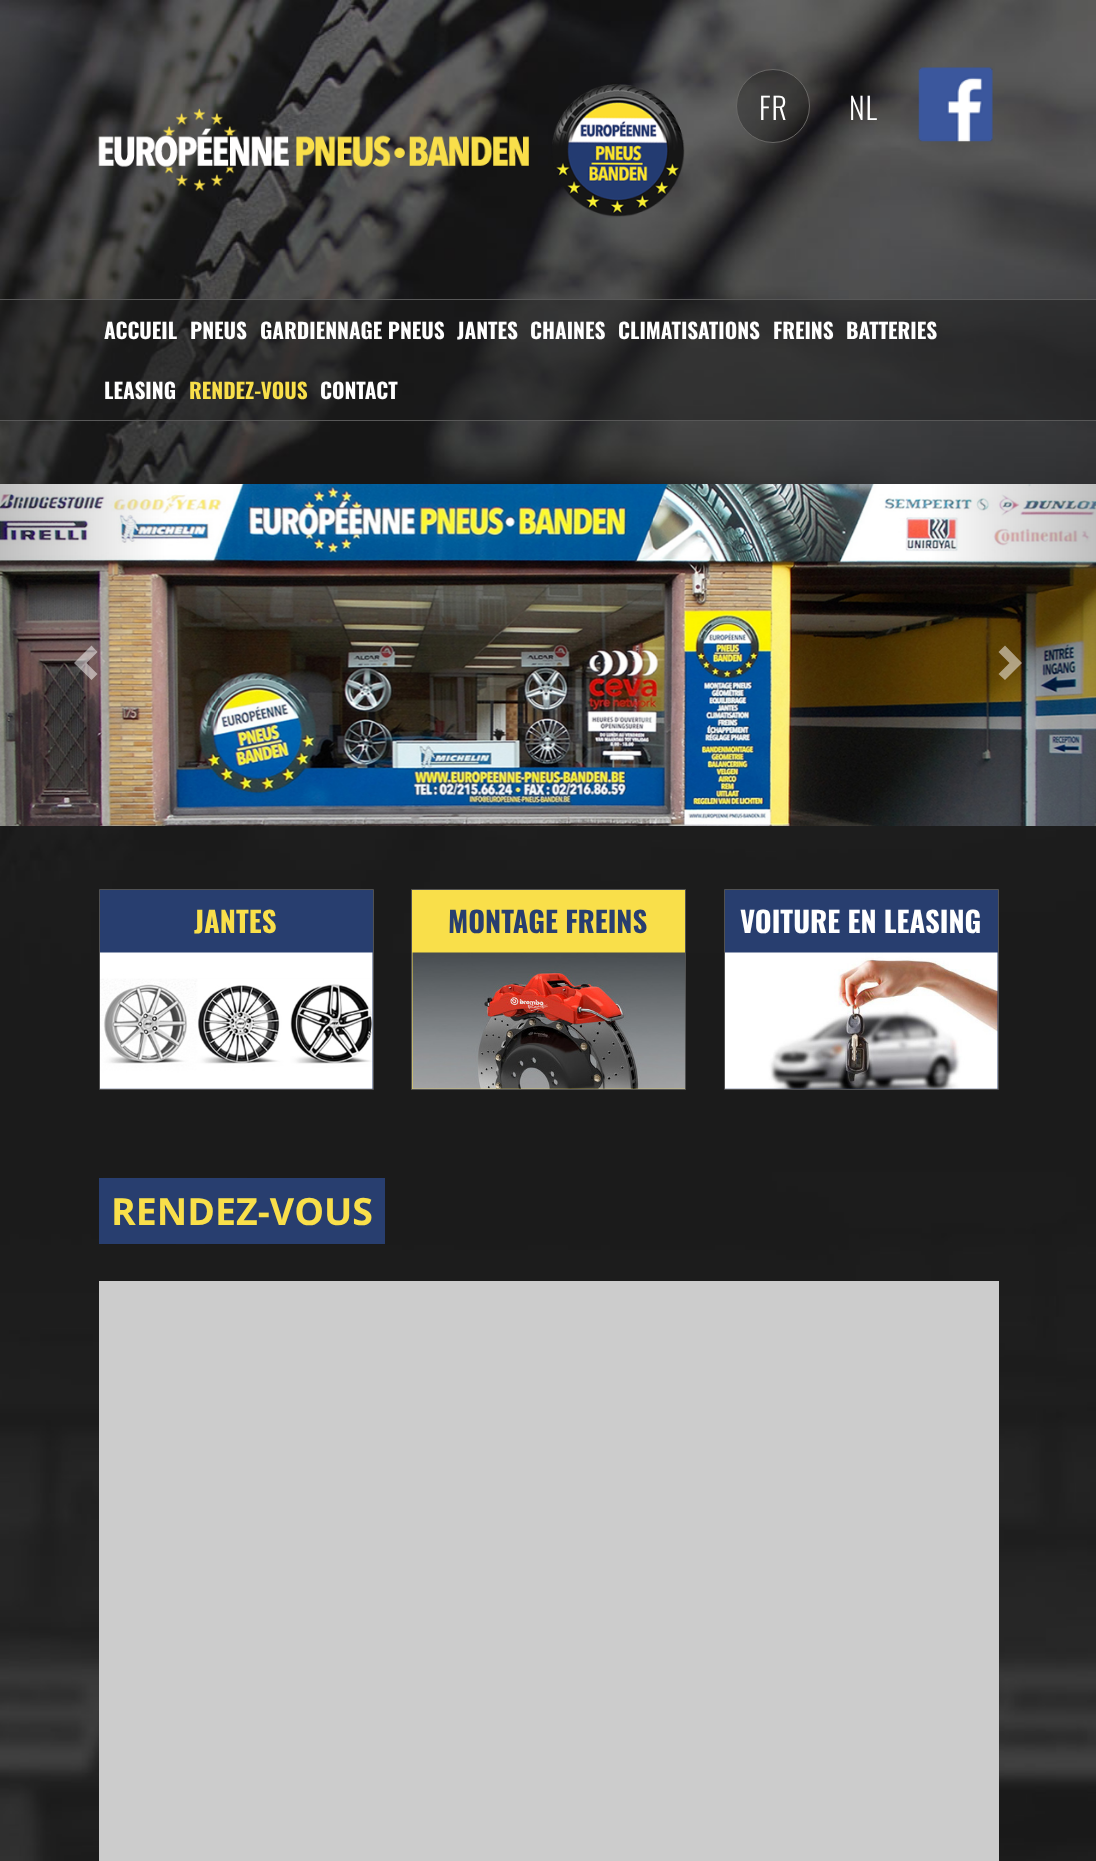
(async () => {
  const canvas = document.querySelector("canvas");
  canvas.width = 1096;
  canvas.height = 1861;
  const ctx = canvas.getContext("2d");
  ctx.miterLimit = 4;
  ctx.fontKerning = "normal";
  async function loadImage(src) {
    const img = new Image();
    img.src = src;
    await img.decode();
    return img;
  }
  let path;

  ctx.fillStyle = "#ffffff";
  ctx.fillRect(0, 0, 1096, 1861);
  ctx.drawImage(await loadImage("img/1.png"), 0, 0, 1096, 1861);
  ctx.drawImage(await loadImage("img/2.png"), 98, 84, 587, 133);
  ctx.fillStyle = "rgba(0, 0, 0, 0.26)";
  ctx.beginPath();
  ctx.arc(773, 106, 36.5, 0, Math.PI * 2);
  ctx.fill();
  ctx.strokeStyle = "#696866";
  ctx.stroke();
  ctx.drawImage(await loadImage("img/3.png"), 918, 67, 75, 75);
  for (const [x, y, w, h, color] of [
    [0, 300, 1096, 120, "rgba(27, 27, 28, 0.5)"],
    [0, 299, 1096, 1, "#585858"],
    [0, 420, 1096, 1, "#585858"],
  ]) {
    ctx.fillStyle = color;
    ctx.fillRect(x, y, w, h);
  }
  ctx.drawImage(await loadImage("img/4.png"), 0, 484, 1096, 342);
  ctx.fillStyle = "rgba(255, 255, 255, 0.5)";
  path = new Path2D("M97.5 652L86.5 663L97.5 674L91.5 680L74 663L91.5 645.5Z");
  ctx.fill(path);
  path = new Path2D("M1022 663L1005 680L998.5 674L1009.5 663L998.5 652L1005 645.5Z");
  ctx.fill(path);
  ctx.fillStyle = "#283e6f";
  ctx.beginPath();
  ctx.rect(99.5, 889.5, 274, 200);
  ctx.fill();
  ctx.strokeStyle = "#515151";
  ctx.stroke();
  ctx.drawImage(await loadImage("img/5.png"), 100, 952, 273, 137);
  ctx.fillStyle = "#f9df4a";
  ctx.beginPath();
  ctx.rect(411.5, 889.5, 274, 200);
  ctx.fill();
  ctx.stroke();
  ctx.drawImage(await loadImage("img/6.png"), 412, 952, 273, 137);
  ctx.fillStyle = "#283e6f";
  ctx.beginPath();
  ctx.rect(724.5, 889.5, 274, 200);
  ctx.fill();
  ctx.stroke();
  ctx.drawImage(await loadImage("img/7.png"), 725, 952, 273, 137);
  ctx.fillRect(99, 1178, 286, 66);
  ctx.fillStyle = "#cccccc";
  ctx.fillRect(99, 1281, 900, 580);
  ctx.letterSpacing = "1px";
  ctx.font = "300 30px Oswald";
  ctx.fillStyle = "#ffffff";
  ctx.fillText("FR", 759, 120);
  ctx.fillText("NL", 849, 120);
  ctx.letterSpacing = "0px";
  ctx.font = "bold 21.25px Oswald";
  for (const [text, x, y] of [
    ["ACCUEIL", 104, 339],
    ["PNEUS", 190, 339],
    ["GARDIENNAGE PNEUS", 260, 339],
    ["JANTES", 457, 339],
    ["CHAINES", 530, 339],
    ["CLIMATISATIONS", 618, 339],
    ["FREINS", 773, 339],
    ["BATTERIES", 846, 339],
    ["LEASING", 104, 399],
  ]) {
    ctx.fillText(text, x, y);
  }
  ctx.fillStyle = "#f9df4a";
  ctx.fillText("RENDEZ-VOUS", 189, 399);
  ctx.fillStyle = "#ffffff";
  ctx.fillText("CONTACT", 320, 399);
  ctx.font = "bold 28.75px Oswald";
  ctx.fillStyle = "#f9df4a";
  ctx.fillText("JANTES", 194, 933);
  ctx.fillStyle = "#283e6f";
  ctx.fillText("MONTAGE FREINS", 448, 933);
  ctx.fillStyle = "#ffffff";
  ctx.fillText("VOITURE EN LEASING", 740, 933);
  ctx.font = "bold 37.5px Open Sans";
  ctx.fillStyle = "#f9df4a";
  ctx.fillText("RENDEZ-VOUS", 111, 1225);
})();
